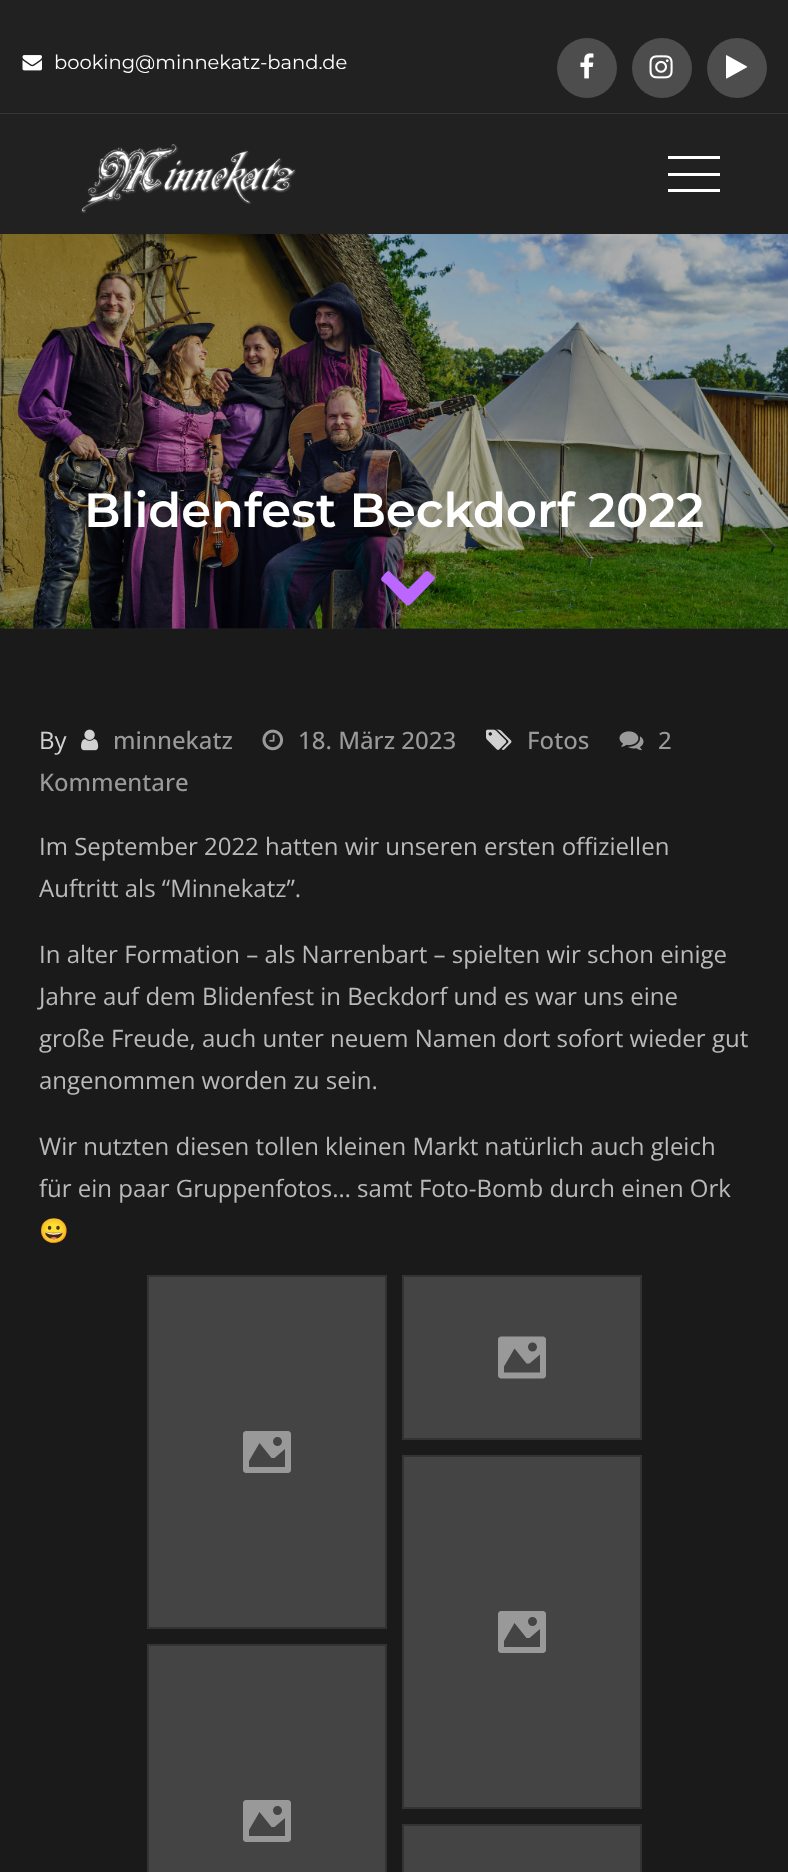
(async () => {
  const canvas = document.querySelector("canvas");
  canvas.width = 788;
  canvas.height = 1872;
  const ctx = canvas.getContext("2d");
  ctx.miterLimit = 4;
  ctx.fontKerning = "normal";
  async function loadImage(src) {
    const img = new Image();
    img.src = src;
    await img.decode();
    return img;
  }
  let path;

  ctx.fillStyle = "#1a1a1a";
  ctx.fillRect(0, 0, 788, 1872);
  ctx.fillStyle = "#212121";
  ctx.fillRect(0, 0, 788, 113);
  ctx.fillStyle = "#373737";
  ctx.fillRect(0, 113, 788, 1);
  ctx.drawImage(await loadImage("img/1.png"), 22, 55, 20, 16);
  ctx.fillStyle = "#4d4d4d";
  ctx.beginPath();
  ctx.arc(587, 68, 30, 0, Math.PI * 2);
  ctx.fill();
  ctx.drawImage(await loadImage("img/2.png"), 580, 53, 14, 26);
  ctx.beginPath();
  ctx.arc(662, 68, 30, 0, Math.PI * 2);
  ctx.fill();
  ctx.drawImage(await loadImage("img/3.png"), 649, 55, 24, 24);
  ctx.beginPath();
  ctx.arc(737, 68, 30, 0, Math.PI * 2);
  ctx.fill();
  ctx.drawImage(await loadImage("img/4.png"), 726, 55, 22, 24);
  ctx.fillStyle = "#212121";
  ctx.fillRect(0, 114, 788, 120);
  ctx.drawImage(await loadImage("img/5.png"), 81, 144, 215, 70);
  for (const [x, y, w, h, color] of [
    [668, 156, 52, 3, "#ffffff"],
    [668, 173, 52, 3, "#ffffff"],
    [668, 189, 52, 3, "#ffffff"],
    [0, 628, 788, 1, "#242424"],
  ]) {
    ctx.fillStyle = color;
    ctx.fillRect(x, y, w, h);
  }
  ctx.drawImage(await loadImage("img/6.png"), 0, 234, 788, 395);
  ctx.fillStyle = "#bb66ff";
  path = new Path2D("M434 580L414 601C407 607 409 607 402 601L386 584C382 581 379 580 383 576C388 570 388 569 393 575L408 589L420 577C426 572 426 568 431 574C432 575 437 578 434 580Z");
  ctx.fill(path);
  ctx.drawImage(await loadImage("img/7.png"), 81, 729, 18, 22);
  ctx.drawImage(await loadImage("img/8.png"), 262, 729, 22, 22);
  ctx.drawImage(await loadImage("img/9.png"), 486, 729, 26, 21);
  ctx.drawImage(await loadImage("img/10.png"), 619, 731, 25, 20);
  ctx.fillStyle = "#444444";
  ctx.beginPath();
  ctx.rect(148, 1276, 238, 352);
  ctx.fill();
  ctx.strokeStyle = "#333333";
  ctx.lineWidth = 2;
  ctx.stroke();
  ctx.drawImage(await loadImage("img/11.png"), 243, 1431, 48, 42);
  ctx.beginPath();
  ctx.rect(403, 1276, 238, 163);
  ctx.fill();
  ctx.stroke();
  ctx.drawImage(await loadImage("img/12.png"), 498, 1336, 48, 43);
  ctx.beginPath();
  ctx.rect(148, 1645, 238, 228);
  ctx.fill();
  ctx.stroke();
  ctx.drawImage(await loadImage("img/11.png"), 243, 1800, 48, 42);
  ctx.beginPath();
  ctx.rect(403, 1456, 238, 352);
  ctx.fill();
  ctx.stroke();
  ctx.drawImage(await loadImage("img/13.png"), 498, 1611, 48, 42);
  ctx.beginPath();
  ctx.rect(403, 1825, 238, 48);
  ctx.fill();
  ctx.stroke();
  ctx.font = "19.5px Montserrat";
  ctx.fillStyle = "#ffffff";
  ctx.fillText("booking@minnekatz-band.de", 54, 69);
  ctx.font = "600 48px Montserrat";
  ctx.fillText("Blidenfest Beckdorf 2022", 84, 527);
  ctx.font = "24px Open Sans";
  ctx.fillStyle = "#d1d1d1";
  ctx.fillText("By", 39, 749);
  ctx.font = "500 24px Open Sans";
  ctx.fillStyle = "#9a9a9a";
  for (const [text, x, y] of [
    ["minnekatz", 113, 749],
    ["18. März 2023", 298, 749],
    ["Fotos", 527, 749],
    ["2", 658, 749],
    ["Kommentare", 39, 791],
  ]) {
    ctx.fillText(text, x, y);
  }
  ctx.font = "24px Open Sans";
  ctx.fillStyle = "#bababa";
  for (const [text, x, y] of [
    ["Im September 2022 hatten wir unseren ersten offiziellen", 39, 855],
    ["Auftritt als “Minnekatz”.", 39, 897],
    ["In alter Formation – als Narrenbart – spielten wir schon einige", 39, 963],
    ["Jahre auf dem Blidenfest in Beckdorf und es war uns eine", 39, 1005],
    ["große Freude, auch unter neuem Namen dort sofort wieder gut", 39, 1047],
    ["angenommen worden zu sein.", 39, 1089],
    ["Wir nutzten diesen tollen kleinen Markt natürlich auch gleich", 39, 1155],
    ["für ein paar Gruppenfotos… samt Foto-Bomb durch einen Ork", 39, 1197],
  ]) {
    ctx.fillText(text, x, y);
  }
  ctx.font = "24px Noto Color Emoji";
  ctx.fillText("😀", 39, 1239);
})();
